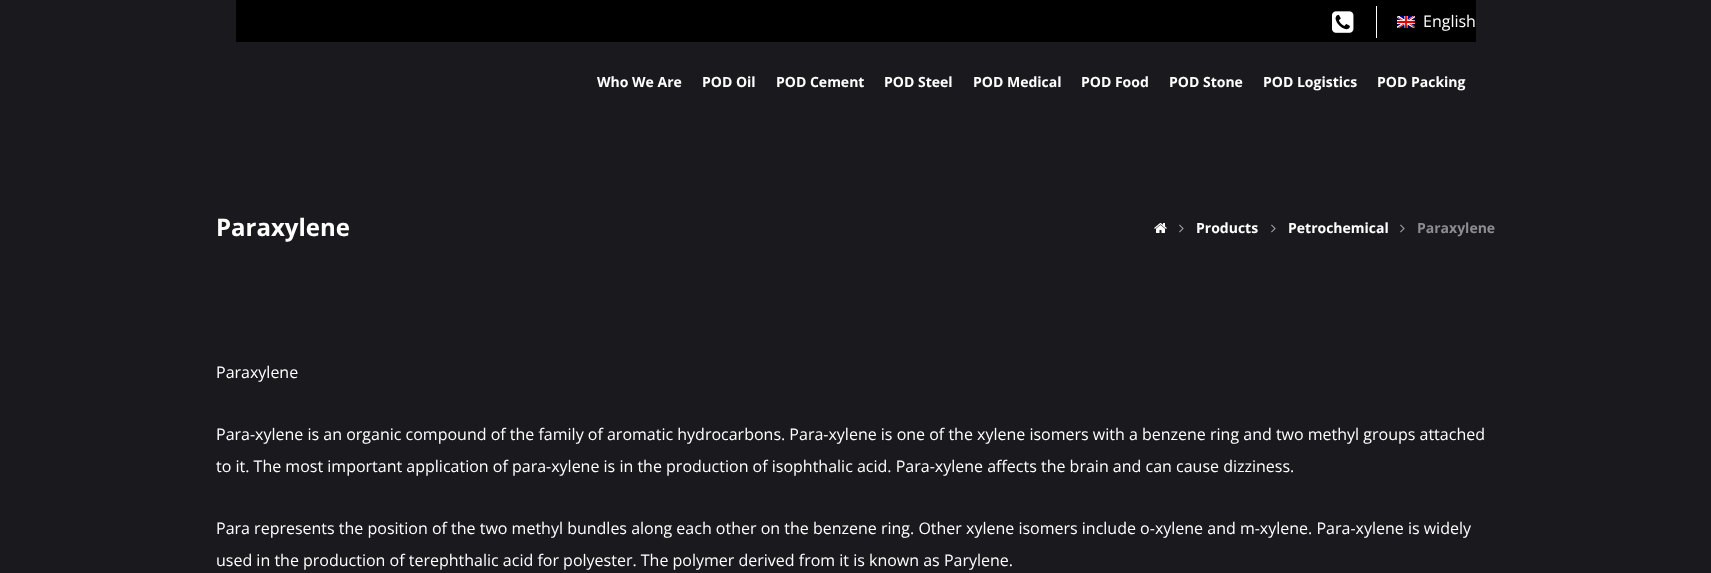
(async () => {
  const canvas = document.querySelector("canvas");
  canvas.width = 1711;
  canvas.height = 573;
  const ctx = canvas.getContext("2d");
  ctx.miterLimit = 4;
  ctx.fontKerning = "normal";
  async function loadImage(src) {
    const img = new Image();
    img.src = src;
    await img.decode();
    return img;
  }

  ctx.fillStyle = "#1a1a1e";
  ctx.fillRect(0, 0, 1711, 573);
  ctx.fillStyle = "#000000";
  ctx.fillRect(236, 0, 1240, 42);
  ctx.drawImage(await loadImage("img/1.png"), 1332, 11, 22, 22);
  ctx.fillStyle = "#ffffff";
  ctx.fillRect(1376, 6, 1, 32);
  ctx.drawImage(await loadImage("img/2.png"), 1397, 16, 18, 12);
  ctx.drawImage(await loadImage("img/3.png"), 1154, 223, 13, 10);
  ctx.drawImage(await loadImage("img/4.png"), 1179, 224, 5, 9);
  ctx.drawImage(await loadImage("img/4.png"), 1271, 224, 5, 9);
  ctx.drawImage(await loadImage("img/4.png"), 1400, 224, 5, 9);
  ctx.font = "16px Open Sans";
  ctx.fillText("English", 1423, 27);
  ctx.font = "bold 14px Open Sans";
  for (const [text, x, y] of [
    ["Who We Are", 597, 87],
    ["POD Oil", 702, 87],
    ["POD Cement", 776, 87],
    ["POD Steel", 884, 87],
    ["POD Medical", 973, 87],
    ["POD Food", 1081, 87],
    ["POD Stone", 1169, 87],
    ["POD Logistics", 1263, 87],
    ["POD Packing", 1377, 87],
  ]) {
    ctx.fillText(text, x, y);
  }
  ctx.font = "bold 24px Open Sans";
  ctx.fillText("Paraxylene", 216, 236);
  ctx.font = "bold 14px Open Sans";
  ctx.fillText("Products", 1196, 233);
  ctx.fillText("Petrochemical", 1288, 233);
  ctx.fillStyle = "#8d8d8f";
  ctx.fillText("Paraxylene", 1417, 233);
  ctx.font = "16px Open Sans";
  ctx.fillStyle = "#ffffff";
  for (const [text, x, y] of [
    ["Paraxylene", 216, 378],
    ["Para-xylene is an organic compound of the family of aromatic hydrocarbons. Para-xylene is one of the xylene isomers with a benzene ring and two methyl groups attached", 216, 440],
    ["to it. The most important application of para-xylene is in the production of isophthalic acid. Para-xylene affects the brain and can cause dizziness.", 216, 472],
    ["Para represents the position of the two methyl bundles along each other on the benzene ring. Other xylene isomers include o-xylene and m-xylene. Para-xylene is widely", 216, 534],
    ["used in the production of terephthalic acid for polyester. The polymer derived from it is known as Parylene.", 216, 566],
  ]) {
    ctx.fillText(text, x, y);
  }
})();
